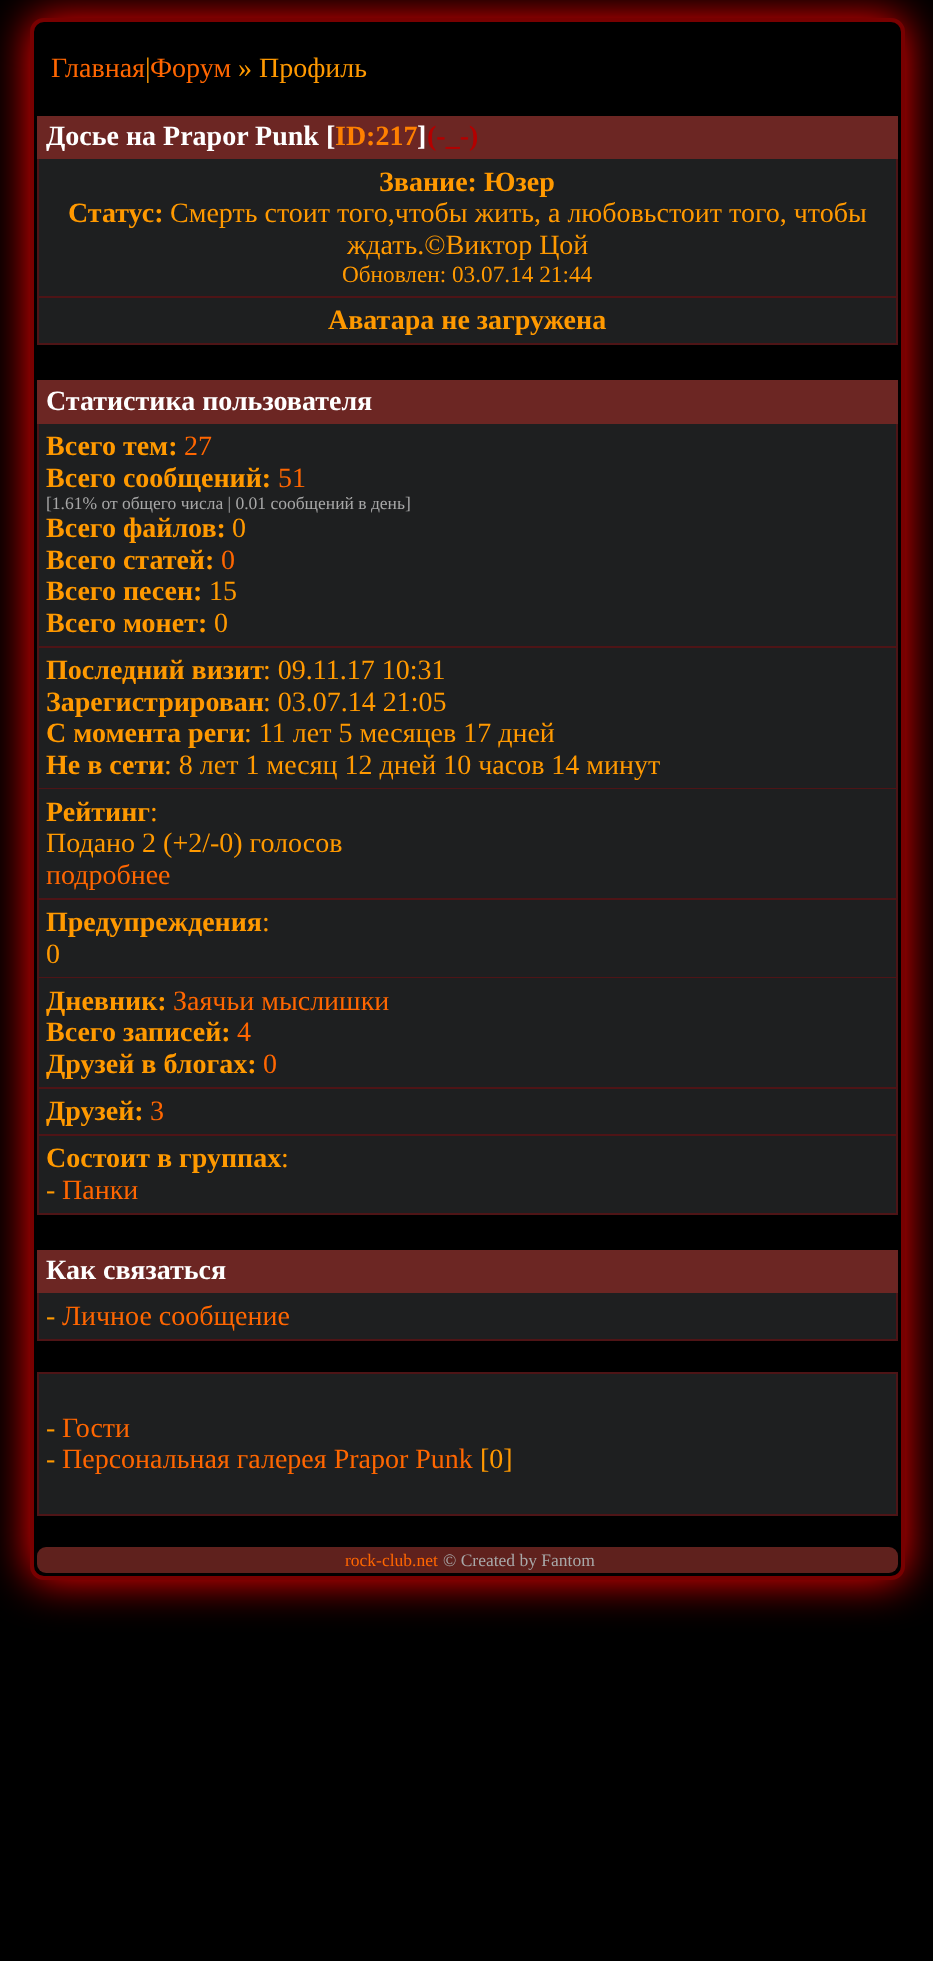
(async () => {
  const canvas = document.querySelector("canvas");
  canvas.width = 933;
  canvas.height = 1961;
  const ctx = canvas.getContext("2d");
  ctx.miterLimit = 4;
  ctx.fontKerning = "normal";

  ctx.fillStyle = "#000000";
  ctx.fillRect(0, 0, 933, 1961);
  ctx.fillStyle = "#ff0000";
  ctx.filter = "blur(22px)";
  ctx.beginPath();
  ctx.roundRect(30, 18, 875, 1562, 14);
  ctx.fill();
  ctx.filter = "none";
  ctx.fillStyle = "#000000";
  ctx.beginPath();
  ctx.roundRect(32, 20, 871, 1558, 12);
  ctx.fill();
  ctx.strokeStyle = "#780000";
  ctx.lineWidth = 4;
  ctx.stroke();
  for (const [x, y, w, h, color] of [
    [37, 116, 861, 43, "#6c2623"],
    [39, 159, 857, 137, "#1e1f20"],
    [896, 159, 2, 186, "#4e1416"],
    [37, 296, 861, 2, "#4e1416"],
    [37, 159, 2, 139, "#4e1416"],
    [39, 298, 857, 45, "#1e1f20"],
    [37, 343, 861, 2, "#4e1416"],
    [37, 298, 2, 47, "#4e1416"],
    [37, 380, 861, 44, "#6c2623"],
    [39, 424, 857, 222, "#1e1f20"],
    [896, 424, 2, 791, "#4e1416"],
    [37, 646, 861, 2, "#4e1416"],
    [37, 424, 2, 224, "#4e1416"],
    [39, 648, 857, 140, "#1e1f20"],
    [37, 788, 861, 1, "#4e1416"],
    [37, 648, 2, 141, "#4e1416"],
    [39, 789, 857, 109, "#1e1f20"],
    [37, 898, 861, 2, "#4e1416"],
    [37, 789, 2, 111, "#4e1416"],
    [39, 900, 857, 77, "#1e1f20"],
    [37, 977, 861, 1, "#4e1416"],
    [37, 900, 2, 78, "#4e1416"],
    [39, 978, 857, 109, "#1e1f20"],
    [37, 1087, 861, 2, "#4e1416"],
    [37, 978, 2, 111, "#4e1416"],
    [39, 1089, 857, 45, "#1e1f20"],
    [37, 1134, 861, 2, "#4e1416"],
    [37, 1089, 2, 47, "#4e1416"],
    [39, 1136, 857, 77, "#1e1f20"],
    [37, 1213, 861, 2, "#4e1416"],
    [37, 1136, 2, 79, "#4e1416"],
    [37, 1250, 861, 43, "#6c2623"],
    [39, 1293, 857, 46, "#1e1f20"],
    [896, 1293, 2, 48, "#4e1416"],
    [37, 1339, 861, 2, "#4e1416"],
    [37, 1293, 2, 48, "#4e1416"],
  ]) {
    ctx.fillStyle = color;
    ctx.fillRect(x, y, w, h);
  }
  ctx.fillStyle = "#1e1f20";
  ctx.beginPath();
  ctx.rect(38, 1373, 859, 142);
  ctx.fill();
  ctx.strokeStyle = "#4e1416";
  ctx.lineWidth = 2;
  ctx.stroke();
  ctx.fillStyle = "#5f211d";
  ctx.beginPath();
  ctx.roundRect(37, 1547, 861, 26, 9);
  ctx.fill();
  ctx.font = "28px Liberation Serif";
  ctx.fillStyle = "#ff6600";
  ctx.fillText("Главная", 51, 77);
  ctx.fillStyle = "#ff9900";
  ctx.fillText("|", 145, 77);
  ctx.fillStyle = "#ff6600";
  ctx.fillText("Форум", 150, 77);
  ctx.fillStyle = "#ff9900";
  ctx.fillText("» Профиль", 238, 77);
  ctx.font = "bold 28px Liberation Serif";
  ctx.fillStyle = "#ffffff";
  ctx.fillText("Досье на Prapor Punk [", 46, 145);
  ctx.fillStyle = "#ff8000";
  ctx.fillText("ID:217", 335, 145);
  ctx.fillStyle = "#ffffff";
  ctx.fillText("]", 417, 145);
  ctx.fillStyle = "#b40000";
  ctx.fillText("(-_-)", 427, 145);
  ctx.fillStyle = "#ff9900";
  ctx.fillText("Звание: Юзер", 379, 191);
  ctx.fillText("Статус:", 68, 222);
  ctx.font = "28px Liberation Serif";
  ctx.fillText("Смерть стоит того,чтобы жить, а любовьстоит того, чтобы", 170, 222);
  ctx.fillText("ждать.©Виктор Цой", 347, 254);
  ctx.font = "23.25px Liberation Serif";
  ctx.fillText("Обновлен: 03.07.14 21:44", 342, 282);
  ctx.font = "bold 28px Liberation Serif";
  ctx.fillText("Аватара не загружена", 328, 329);
  ctx.fillStyle = "#ffffff";
  ctx.fillText("Статистика пользователя", 46, 410);
  ctx.fillStyle = "#ff9900";
  ctx.fillText("Всего тем:", 46, 455);
  ctx.font = "28px Liberation Serif";
  ctx.fillStyle = "#ff6600";
  ctx.fillText("27", 184, 455);
  ctx.font = "bold 28px Liberation Serif";
  ctx.fillStyle = "#ff9900";
  ctx.fillText("Всего сообщений:", 46, 487);
  ctx.font = "28px Liberation Serif";
  ctx.fillStyle = "#ff6600";
  ctx.fillText("51", 278, 487);
  ctx.font = "17.5px Liberation Serif";
  ctx.fillStyle = "#a8a8a8";
  ctx.fillText("[1.61% от общего числа | 0.01 сообщений в день]", 46, 509);
  ctx.font = "bold 28px Liberation Serif";
  ctx.fillStyle = "#ff9900";
  ctx.fillText("Всего файлов:", 46, 537);
  ctx.font = "28px Liberation Serif";
  ctx.fillText("0", 232, 537);
  ctx.font = "bold 28px Liberation Serif";
  ctx.fillText("Всего статей:", 46, 569);
  ctx.font = "28px Liberation Serif";
  ctx.fillStyle = "#ff6600";
  ctx.fillText("0", 221, 569);
  ctx.font = "bold 28px Liberation Serif";
  ctx.fillStyle = "#ff9900";
  ctx.fillText("Всего песен:", 46, 600);
  ctx.font = "28px Liberation Serif";
  ctx.fillText("15", 209, 600);
  ctx.font = "bold 28px Liberation Serif";
  ctx.fillText("Всего монет:", 46, 632);
  ctx.font = "28px Liberation Serif";
  ctx.fillText("0", 214, 632);
  ctx.font = "bold 28px Liberation Serif";
  ctx.fillText("Последний визит", 46, 679);
  ctx.font = "28px Liberation Serif";
  ctx.fillText(": 09.11.17 10:31", 263, 679);
  ctx.font = "bold 28px Liberation Serif";
  ctx.fillText("Зарегистрирован", 46, 711);
  ctx.font = "28px Liberation Serif";
  ctx.fillText(": 03.07.14 21:05", 263, 711);
  ctx.font = "bold 28px Liberation Serif";
  ctx.fillText("С момента реги", 46, 742);
  ctx.font = "28px Liberation Serif";
  ctx.fillText(": 11 лет 5 месяцев 17 дней", 244, 742);
  ctx.font = "bold 28px Liberation Serif";
  ctx.fillText("Не в сети", 46, 774);
  ctx.font = "28px Liberation Serif";
  ctx.fillText(": 8 лет 1 месяц 12 дней 10 часов 14 минут", 164, 774);
  ctx.font = "bold 28px Liberation Serif";
  ctx.fillText("Рейтинг", 46, 821);
  ctx.font = "28px Liberation Serif";
  ctx.fillText(":", 150, 821);
  ctx.fillText("Подано 2 (+2/-0) голосов", 46, 852);
  ctx.fillStyle = "#ff6600";
  ctx.fillText("подробнее", 46, 884);
  ctx.font = "bold 28px Liberation Serif";
  ctx.fillStyle = "#ff9900";
  ctx.fillText("Предупреждения", 46, 931);
  ctx.font = "28px Liberation Serif";
  ctx.fillText(":", 262, 931);
  ctx.fillText("0", 46, 963);
  ctx.font = "bold 28px Liberation Serif";
  ctx.fillText("Дневник:", 46, 1010);
  ctx.font = "28px Liberation Serif";
  ctx.fillStyle = "#ff6600";
  ctx.fillText("Заячьи мыслишки", 173, 1010);
  ctx.font = "bold 28px Liberation Serif";
  ctx.fillStyle = "#ff9900";
  ctx.fillText("Всего записей:", 46, 1041);
  ctx.font = "28px Liberation Serif";
  ctx.fillStyle = "#ff6600";
  ctx.fillText("4", 237, 1041);
  ctx.font = "bold 28px Liberation Serif";
  ctx.fillStyle = "#ff9900";
  ctx.fillText("Друзей в блогах:", 46, 1073);
  ctx.font = "28px Liberation Serif";
  ctx.fillStyle = "#ff6600";
  ctx.fillText("0", 263, 1073);
  ctx.font = "bold 28px Liberation Serif";
  ctx.fillStyle = "#ff9900";
  ctx.fillText("Друзей:", 46, 1120);
  ctx.font = "28px Liberation Serif";
  ctx.fillStyle = "#ff6600";
  ctx.fillText("3", 150, 1120);
  ctx.font = "bold 28px Liberation Serif";
  ctx.fillStyle = "#ff9900";
  ctx.fillText("Состоит в группах", 46, 1167);
  ctx.font = "28px Liberation Serif";
  ctx.fillText(":", 281, 1167);
  ctx.fillText("-", 46, 1199);
  ctx.fillStyle = "#ff6600";
  ctx.fillText("Панки", 62, 1199);
  ctx.font = "bold 28px Liberation Serif";
  ctx.fillStyle = "#ffffff";
  ctx.fillText("Как связаться", 46, 1279);
  ctx.font = "28px Liberation Serif";
  ctx.fillStyle = "#ff9900";
  ctx.fillText("-", 46, 1325);
  ctx.fillStyle = "#ff6600";
  ctx.fillText("Личное сообщение", 62, 1325);
  ctx.fillStyle = "#ff9900";
  ctx.fillText("-", 46, 1437);
  ctx.fillStyle = "#ff6600";
  ctx.fillText("Гости", 62, 1437);
  ctx.fillStyle = "#ff9900";
  ctx.fillText("-", 46, 1468);
  ctx.fillStyle = "#ff6600";
  ctx.fillText("Персональная галерея Prapor Punk", 62, 1468);
  ctx.fillStyle = "#ff9900";
  ctx.fillText("[0]", 480, 1468);
  ctx.font = "17.5px Liberation Serif";
  ctx.fillStyle = "#ff6600";
  ctx.fillText("rock-club.net", 345, 1566);
  ctx.fillStyle = "#a8a8a8";
  ctx.fillText("© Created by Fantom", 443, 1566);
})();
